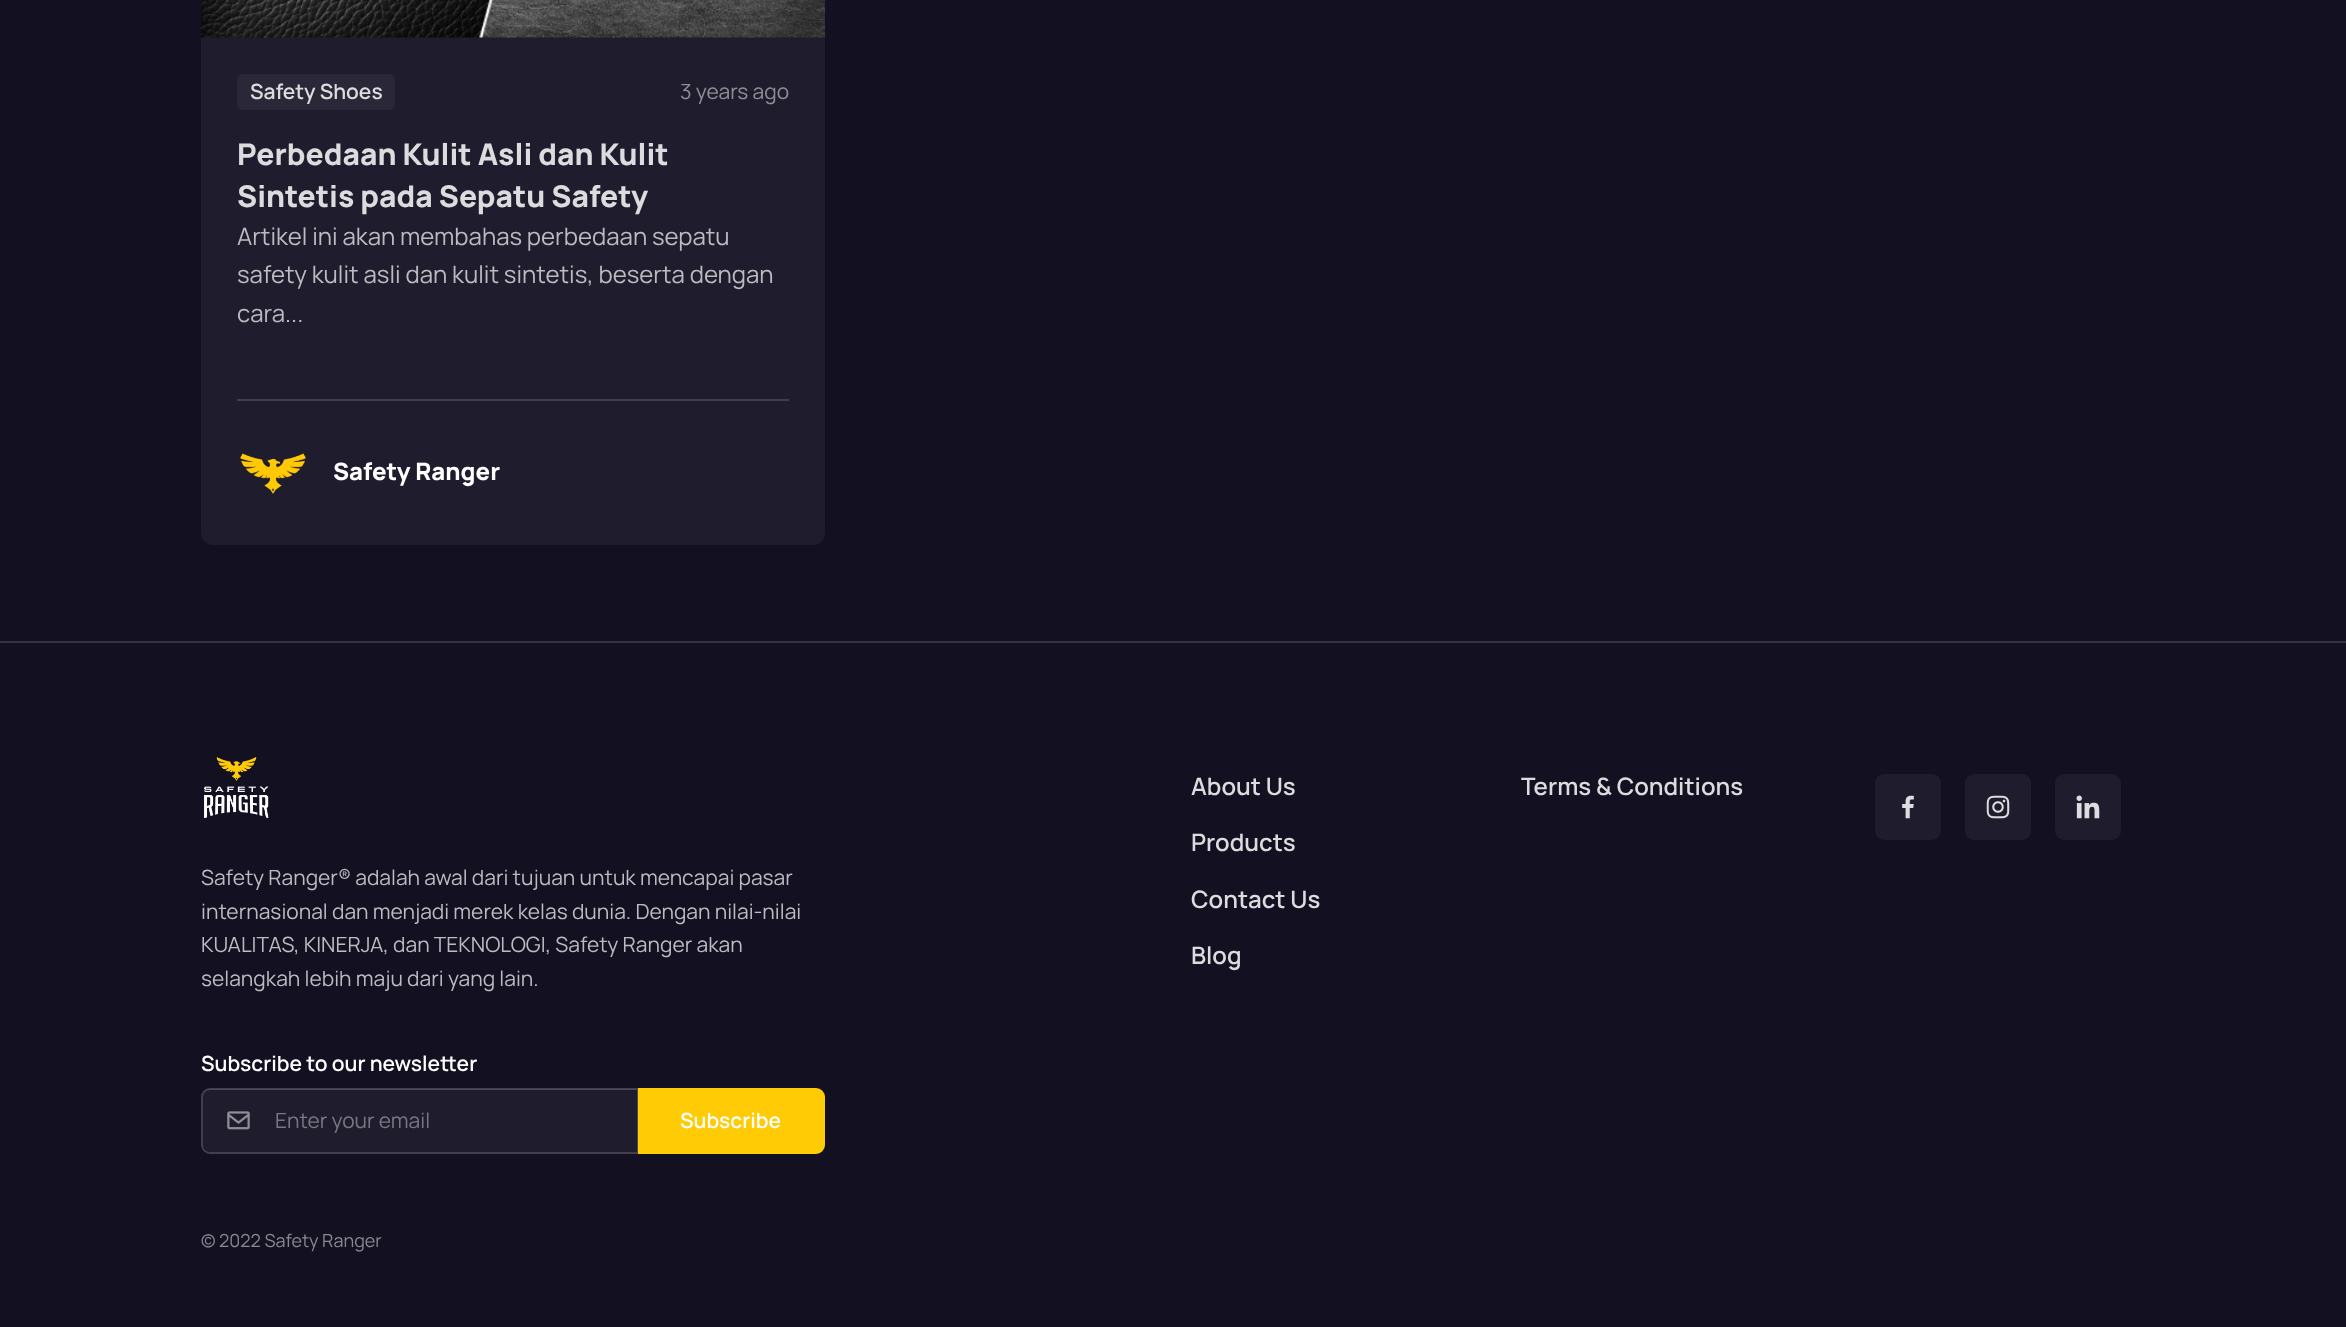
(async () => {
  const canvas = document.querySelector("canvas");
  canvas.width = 2346;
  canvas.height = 1327;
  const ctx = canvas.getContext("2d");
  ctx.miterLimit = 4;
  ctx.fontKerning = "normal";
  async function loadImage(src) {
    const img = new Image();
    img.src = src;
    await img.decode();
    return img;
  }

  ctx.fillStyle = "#131022";
  ctx.fillRect(0, 0, 2346, 1327);
  ctx.fillStyle = "#1f1c2d";
  ctx.beginPath();
  ctx.roundRect(201, -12, 624, 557, 12);
  ctx.fill();
  ctx.drawImage(await loadImage("img/1.png"), 201, 0, 624, 38);
  ctx.fillStyle = "#2a2738";
  ctx.beginPath();
  ctx.roundRect(237, 74, 158, 36, 6);
  ctx.fill();
  ctx.fillStyle = "#413e4d";
  ctx.fillRect(237, 399, 552, 2);
  ctx.drawImage(await loadImage("img/2.png"), 240, 453, 66, 41);
  ctx.fillStyle = "#363443";
  ctx.fillRect(0, 641, 2346, 2);
  ctx.drawImage(await loadImage("img/3.png"), 204, 757, 65, 61);
  ctx.fillStyle = "#1f1c2d";
  ctx.beginPath();
  ctx.roundRect(203, 1089, 435, 63, [8, 0, 0, 8]);
  ctx.fill();
  ctx.beginPath();
  ctx.roundRect(202, 1089, 436, 64, [8, 0, 0, 8]);
  ctx.strokeStyle = "rgba(255, 255, 255, 0.2)";
  ctx.lineWidth = 2;
  ctx.stroke();
  ctx.drawImage(await loadImage("img/4.png"), 227, 1111, 23, 19);
  ctx.fillStyle = "#ffcb04";
  ctx.beginPath();
  ctx.roundRect(639, 1089, 185, 64, [0, 8, 8, 0]);
  ctx.fill();
  ctx.strokeStyle = "#ffcb04";
  ctx.stroke();
  ctx.fillStyle = "#1f1c2d";
  ctx.beginPath();
  ctx.roundRect(1875, 774, 66, 66, 9);
  ctx.fill();
  ctx.drawImage(await loadImage("img/5.png"), 1902, 795, 12, 24);
  ctx.beginPath();
  ctx.roundRect(1965, 774, 66, 66, 9);
  ctx.fill();
  ctx.drawImage(await loadImage("img/6.png"), 1986, 795, 24, 24);
  ctx.beginPath();
  ctx.roundRect(2055, 774, 66, 66, 9);
  ctx.fill();
  ctx.drawImage(await loadImage("img/7.png"), 2076, 795, 24, 24);
  ctx.font = "600 21px Manrope";
  ctx.fillStyle = "#dcdbde";
  ctx.fillText("Safety Shoes", 250, 99);
  ctx.font = "21px Manrope";
  ctx.fillStyle = "#8f8e96";
  ctx.fillText("3 years ago", 680, 99);
  ctx.font = "800 30px Manrope";
  ctx.fillStyle = "#dcdbde";
  ctx.fillText("Perbedaan Kulit Asli dan Kulit", 237, 165);
  ctx.fillText("Sintetis pada Sepatu Safety", 237, 207);
  ctx.font = "24px Manrope";
  ctx.fillStyle = "#bcbbc0";
  for (const [text, x, y] of [
    ["Artikel ini akan membahas perbedaan sepatu", 237, 245],
    ["safety kulit asli dan kulit sintetis, beserta dengan", 237, 283],
    ["cara...", 237, 322],
  ]) {
    ctx.fillText(text, x, y);
  }
  ctx.font = "800 24px Manrope";
  ctx.fillStyle = "#ffffff";
  ctx.fillText("Safety Ranger", 333, 480);
  ctx.font = "21px Manrope";
  ctx.fillStyle = "#bcbbc0";
  for (const [text, x, y] of [
    ["Safety Ranger® adalah awal dari tujuan untuk mencapai pasar", 201, 885],
    ["internasional dan menjadi merek kelas dunia. Dengan nilai-nilai", 201, 919],
    ["KUALITAS, KINERJA, dan TEKNOLOGI, Safety Ranger akan", 201, 952],
    ["selangkah lebih maju dari yang lain.", 201, 986],
  ]) {
    ctx.fillText(text, x, y);
  }
  ctx.font = "600 21px Manrope";
  ctx.fillStyle = "#ffffff";
  ctx.fillText("Subscribe to our newsletter", 201, 1071);
  ctx.font = "21px Manrope";
  ctx.fillStyle = "#797781";
  ctx.fillText("Enter your email", 275, 1128);
  ctx.font = "600 21px Manrope";
  ctx.fillStyle = "#ffffff";
  ctx.fillText("Subscribe", 680, 1128);
  ctx.font = "600 24px Manrope";
  ctx.fillStyle = "#dcdbde";
  for (const [text, x, y] of [
    ["About Us", 1191, 795],
    ["Products", 1191, 851],
    ["Contact Us", 1191, 908],
    ["Blog", 1191, 964],
    ["Terms & Conditions", 1521, 795],
  ]) {
    ctx.fillText(text, x, y);
  }
  ctx.font = "18px Manrope";
  ctx.fillStyle = "#898891";
  ctx.fillText("© 2022 Safety Ranger", 201, 1247);
})();
